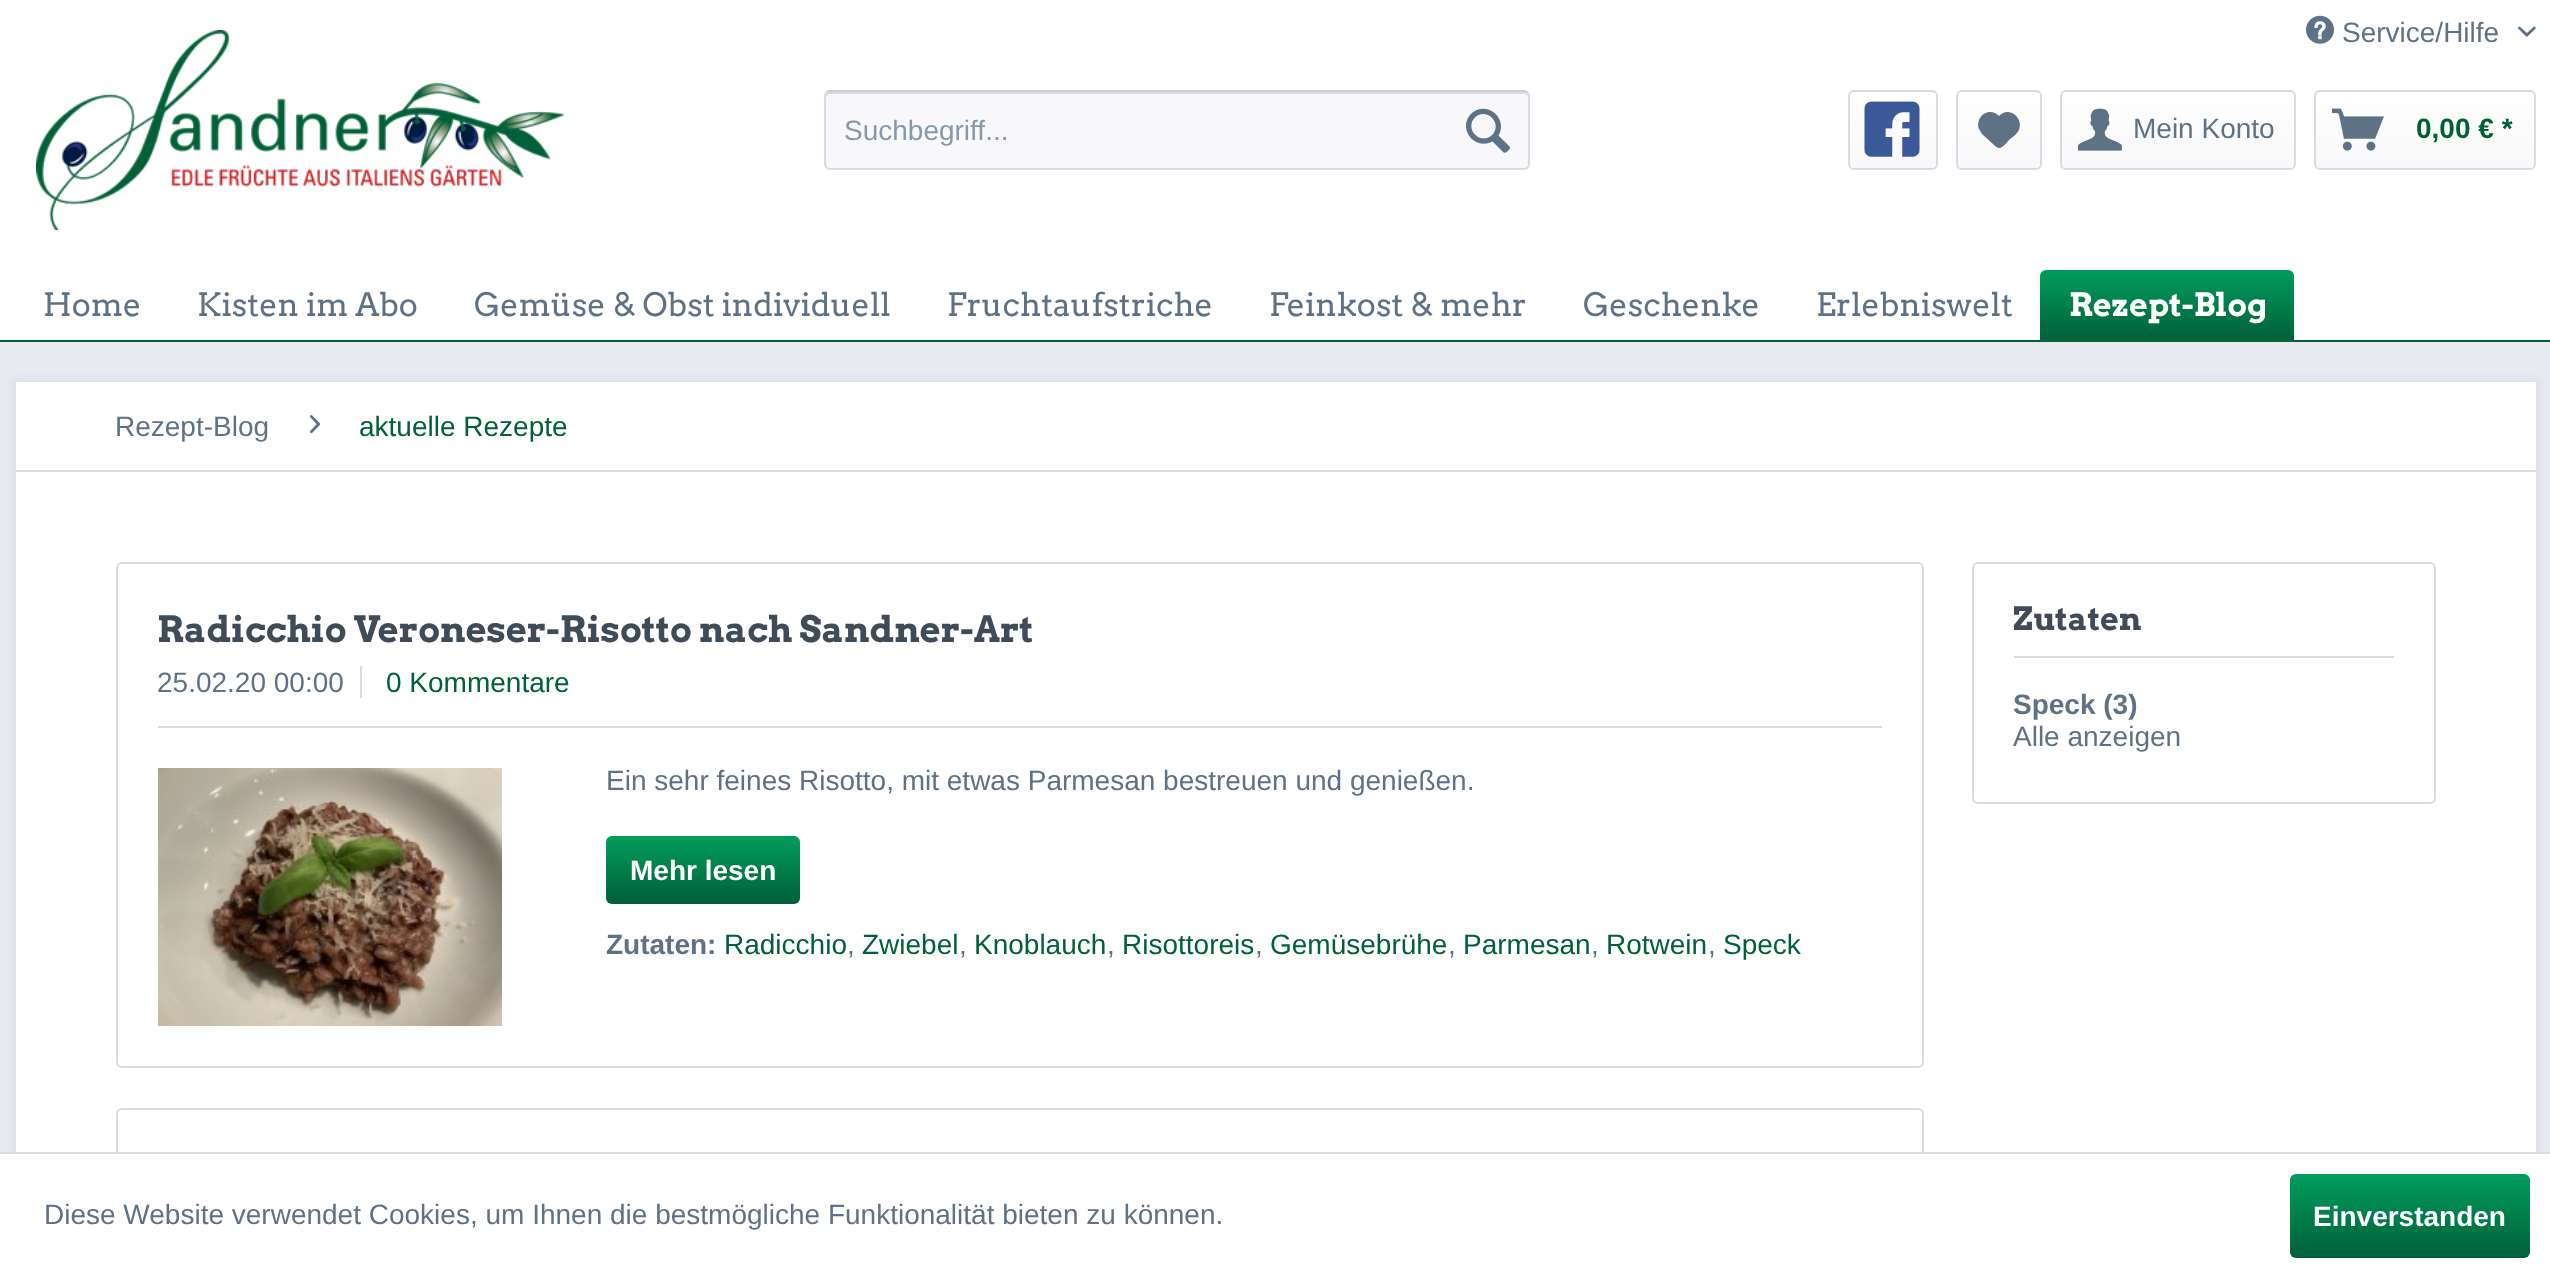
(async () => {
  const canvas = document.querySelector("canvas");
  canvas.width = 2550;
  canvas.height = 1277;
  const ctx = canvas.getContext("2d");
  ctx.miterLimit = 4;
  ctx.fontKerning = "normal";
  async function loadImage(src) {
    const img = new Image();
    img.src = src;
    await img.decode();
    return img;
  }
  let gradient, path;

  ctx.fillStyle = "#e9e9f0";
  ctx.fillRect(0, 0, 2550, 1277);
  ctx.fillStyle = "#ffffff";
  ctx.fillRect(0, 0, 2550, 340);
  ctx.drawImage(await loadImage("img/1.png"), 2306, 15, 28, 29);
  ctx.drawImage(await loadImage("img/2.png"), 2518, 26, 18, 11);
  ctx.drawImage(await loadImage("img/3.png"), 36, 30, 528, 200);
  ctx.fillStyle = "#f8f8fa";
  ctx.beginPath();
  ctx.roundRect(824, 90, 706, 80, 6);
  ctx.fill();
  ctx.fillStyle = "#dadae5";
  path = new Path2D("M830 94H1524C1526 94 1528 96 1528 98C1528 95 1528 92 1524 92H830C826 92 826 95 826 98C826 96 828 94 830 94Z");
  ctx.fill(path);
  path = new Path2D("M826.5 92.5C827.5 91.5 828.5 91 830 91H1524C1525.5 91 1526.5 91.5 1527.5 92.5");
  ctx.strokeStyle = "#cbcbdb";
  ctx.lineWidth = 2;
  ctx.stroke(path);
  path = new Path2D("M1527.5 92.5C1528.5 93.5 1529 94.5 1529 96V164C1529 165.5 1528.5 166.5 1527.5 167.5C1526.5 168.5 1525.5 169 1524 169H830C828.5 169 827.5 168.5 826.5 167.5C825.5 166.5 825 165.5 825 164V96C825 94.5 825.5 93.5 826.5 92.5");
  ctx.strokeStyle = "#dadae5";
  ctx.stroke(path);
  ctx.drawImage(await loadImage("img/4.png"), 1466, 108, 44, 45);
  gradient = ctx.createLinearGradient(1893, 92, 1893, 168);
  gradient.addColorStop(0, "#ffffff");
  gradient.addColorStop(1, "#f8f8fa");
  ctx.fillStyle = gradient;
  ctx.beginPath();
  ctx.roundRect(1850, 92, 86, 76, 4);
  ctx.fill();
  ctx.beginPath();
  ctx.roundRect(1849, 91, 88, 78, 5);
  ctx.stroke();
  ctx.drawImage(await loadImage("img/5.png"), 1864, 101, 56, 56);
  gradient = ctx.createLinearGradient(1999, 92, 1999, 168);
  gradient.addColorStop(0, "#ffffff");
  gradient.addColorStop(1, "#f8f8fa");
  ctx.fillStyle = gradient;
  ctx.beginPath();
  ctx.roundRect(1958, 92, 82, 76, 4);
  ctx.fill();
  ctx.beginPath();
  ctx.roundRect(1957, 91, 84, 78, 5);
  ctx.stroke();
  ctx.fillStyle = "#5f7285";
  path = new Path2D("M1990 112C1982 112 1976 121 1979 129L1982 134L1994 145C2001 152 2004 145 2010 139C2013 137 2017 134 2019 130C2024 117 2008 106 1999 116C1997 114 1994 112 1990 112Z");
  ctx.fill(path);
  gradient = ctx.createLinearGradient(2178, 92, 2178, 168);
  gradient.addColorStop(0, "#ffffff");
  gradient.addColorStop(1, "#f8f8fa");
  ctx.fillStyle = gradient;
  ctx.beginPath();
  ctx.roundRect(2062, 92, 232, 76, 4);
  ctx.fill();
  ctx.beginPath();
  ctx.roundRect(2061, 91, 234, 78, 5);
  ctx.stroke();
  ctx.drawImage(await loadImage("img/6.png"), 2078, 108, 44, 43);
  gradient = ctx.createLinearGradient(2425, 92, 2425, 168);
  gradient.addColorStop(0, "#ffffff");
  gradient.addColorStop(1, "#f8f8fa");
  ctx.fillStyle = gradient;
  ctx.beginPath();
  ctx.roundRect(2316, 92, 218, 76, 4);
  ctx.fill();
  ctx.beginPath();
  ctx.roundRect(2315, 91, 220, 78, 5);
  ctx.stroke();
  ctx.drawImage(await loadImage("img/7.png"), 2332, 108, 52, 43);
  ctx.fillStyle = "#006038";
  ctx.fillRect(0, 340, 2550, 2);
  gradient = ctx.createLinearGradient(2167, 270, 2167, 340);
  gradient.addColorStop(0, "#009d5c");
  gradient.addColorStop(1, "#006038");
  ctx.fillStyle = gradient;
  ctx.beginPath();
  ctx.roundRect(2040, 270, 254, 70, [6, 6, 0, 0]);
  ctx.fill();
  ctx.fillStyle = "#dadae5";
  ctx.filter = "blur(4px)";
  ctx.beginPath();
  ctx.rect(14, 380, 2524, 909);
  ctx.fill();
  ctx.filter = "none";
  ctx.fillStyle = "#ffffff";
  ctx.fillRect(16, 382, 2520, 770);
  ctx.fillStyle = "#dadae5";
  ctx.fillRect(16, 470, 2520, 2);
  ctx.drawImage(await loadImage("img/8.png"), 310, 415, 11, 19);
  ctx.beginPath();
  ctx.roundRect(117, 563, 1806, 504, 5);
  ctx.stroke();
  ctx.fillRect(158, 726, 1724, 2);
  ctx.fillRect(360, 666, 2, 32);
  ctx.drawImage(await loadImage("img/9.png"), 158, 768, 344, 258);
  gradient = ctx.createLinearGradient(703, 836, 703, 904);
  gradient.addColorStop(0, "#009d5c");
  gradient.addColorStop(1, "#006038");
  ctx.fillStyle = gradient;
  ctx.beginPath();
  ctx.roundRect(606, 836, 194, 68, 6);
  ctx.fill();
  ctx.beginPath();
  ctx.roundRect(117, 1109, 1806, 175, 5);
  ctx.stroke();
  ctx.beginPath();
  ctx.roundRect(1973, 563, 462, 240, 5);
  ctx.stroke();
  for (const [x, y, w, h, color] of [
    [2014, 656, 380, 2, "#dadae5"],
    [0, 1154, 2550, 123, "#ffffff"],
    [0, 1152, 2550, 2, "#dadae5"],
  ]) {
    ctx.fillStyle = color;
    ctx.fillRect(x, y, w, h);
  }
  gradient = ctx.createLinearGradient(2410, 1174, 2410, 1258);
  gradient.addColorStop(0, "#009d5c");
  gradient.addColorStop(1, "#006038");
  ctx.fillStyle = gradient;
  ctx.beginPath();
  ctx.roundRect(2290, 1174, 240, 84, 6);
  ctx.fill();
  ctx.font = "28px Liberation Sans";
  ctx.fillStyle = "#5f7285";
  ctx.fillText("Service/Hilfe", 2342, 42);
  ctx.fillStyle = "#8798a9";
  ctx.fillText("Suchbegriff...", 844, 140);
  ctx.fillStyle = "#5f7285";
  ctx.fillText("Mein Konto", 2133, 138);
  ctx.font = "bold 28px Liberation Sans";
  ctx.fillStyle = "#006038";
  ctx.fillText("0,00 € *", 2416, 138);
  ctx.font = "32px Arvo";
  ctx.fillStyle = "#5f7285";
  for (const [text, x, y] of [
    ["Home", 43, 316],
    ["Kisten im Abo", 197, 316],
    ["Gemüse & Obst individuell", 474, 316],
    ["Fruchtaufstriche", 947, 316],
    ["Feinkost & mehr", 1269, 316],
    ["Geschenke", 1583, 316],
    ["Erlebniswelt", 1816, 316],
  ]) {
    ctx.fillText(text, x, y);
  }
  ctx.font = "bold 32px Arvo";
  ctx.fillStyle = "#ffffff";
  ctx.fillText("Rezept-Blog", 2069, 316);
  ctx.font = "28px Liberation Sans";
  ctx.fillStyle = "#5f7285";
  ctx.fillText("Rezept-Blog", 115, 436);
  ctx.fillStyle = "#006038";
  ctx.fillText("aktuelle Rezepte", 359, 436);
  ctx.font = "bold 36px Arvo";
  ctx.fillStyle = "#3f4c58";
  ctx.fillText("Radicchio Veroneser-Risotto nach Sandner-Art", 157, 642);
  ctx.font = "28px Liberation Sans";
  ctx.fillStyle = "#5f7285";
  ctx.fillText("25.02.20 00:00", 157, 692);
  ctx.fillStyle = "#006038";
  ctx.fillText("0 Kommentare", 386, 692);
  ctx.fillStyle = "#5f7285";
  ctx.fillText("Ein sehr feines Risotto, mit etwas Parmesan bestreuen und genießen.", 606, 790);
  ctx.font = "bold 28px Liberation Sans";
  ctx.fillStyle = "#ffffff";
  ctx.fillText("Mehr lesen", 630, 880);
  ctx.fillStyle = "#5f7285";
  ctx.fillText("Zutaten:", 606, 954);
  ctx.font = "28px Liberation Sans";
  ctx.fillStyle = "#006038";
  ctx.fillText("Radicchio", 724, 954);
  ctx.fillStyle = "#5f7285";
  ctx.fillText(",", 847, 954);
  ctx.fillStyle = "#006038";
  ctx.fillText("Zwiebel", 862, 954);
  ctx.fillStyle = "#5f7285";
  ctx.fillText(",", 959, 954);
  ctx.fillStyle = "#006038";
  ctx.fillText("Knoblauch", 974, 954);
  ctx.fillStyle = "#5f7285";
  ctx.fillText(",", 1107, 954);
  ctx.fillStyle = "#006038";
  ctx.fillText("Risottoreis", 1122, 954);
  ctx.fillStyle = "#5f7285";
  ctx.fillText(",", 1255, 954);
  ctx.fillStyle = "#006038";
  ctx.fillText("Gemüsebrühe", 1270, 954);
  ctx.fillStyle = "#5f7285";
  ctx.fillText(",", 1448, 954);
  ctx.fillStyle = "#006038";
  ctx.fillText("Parmesan", 1463, 954);
  ctx.fillStyle = "#5f7285";
  ctx.fillText(",", 1591, 954);
  ctx.fillStyle = "#006038";
  ctx.fillText("Rotwein", 1606, 954);
  ctx.fillStyle = "#5f7285";
  ctx.fillText(",", 1708, 954);
  ctx.fillStyle = "#006038";
  ctx.fillText("Speck", 1723, 954);
  ctx.font = "bold 32px Arvo";
  ctx.fillStyle = "#3f4c58";
  ctx.fillText("Zutaten", 2013, 630);
  ctx.font = "bold 28px Liberation Sans";
  ctx.fillStyle = "#5f7285";
  ctx.fillText("Speck (3)", 2013, 714);
  ctx.font = "28px Liberation Sans";
  ctx.fillText("Alle anzeigen", 2013, 746);
  ctx.fillText("Diese Website verwendet Cookies, um Ihnen die bestmögliche Funktionalität bieten zu können.", 44, 1224);
  ctx.font = "bold 28px Liberation Sans";
  ctx.fillStyle = "#ffffff";
  ctx.fillText("Einverstanden", 2313, 1226);
})();
